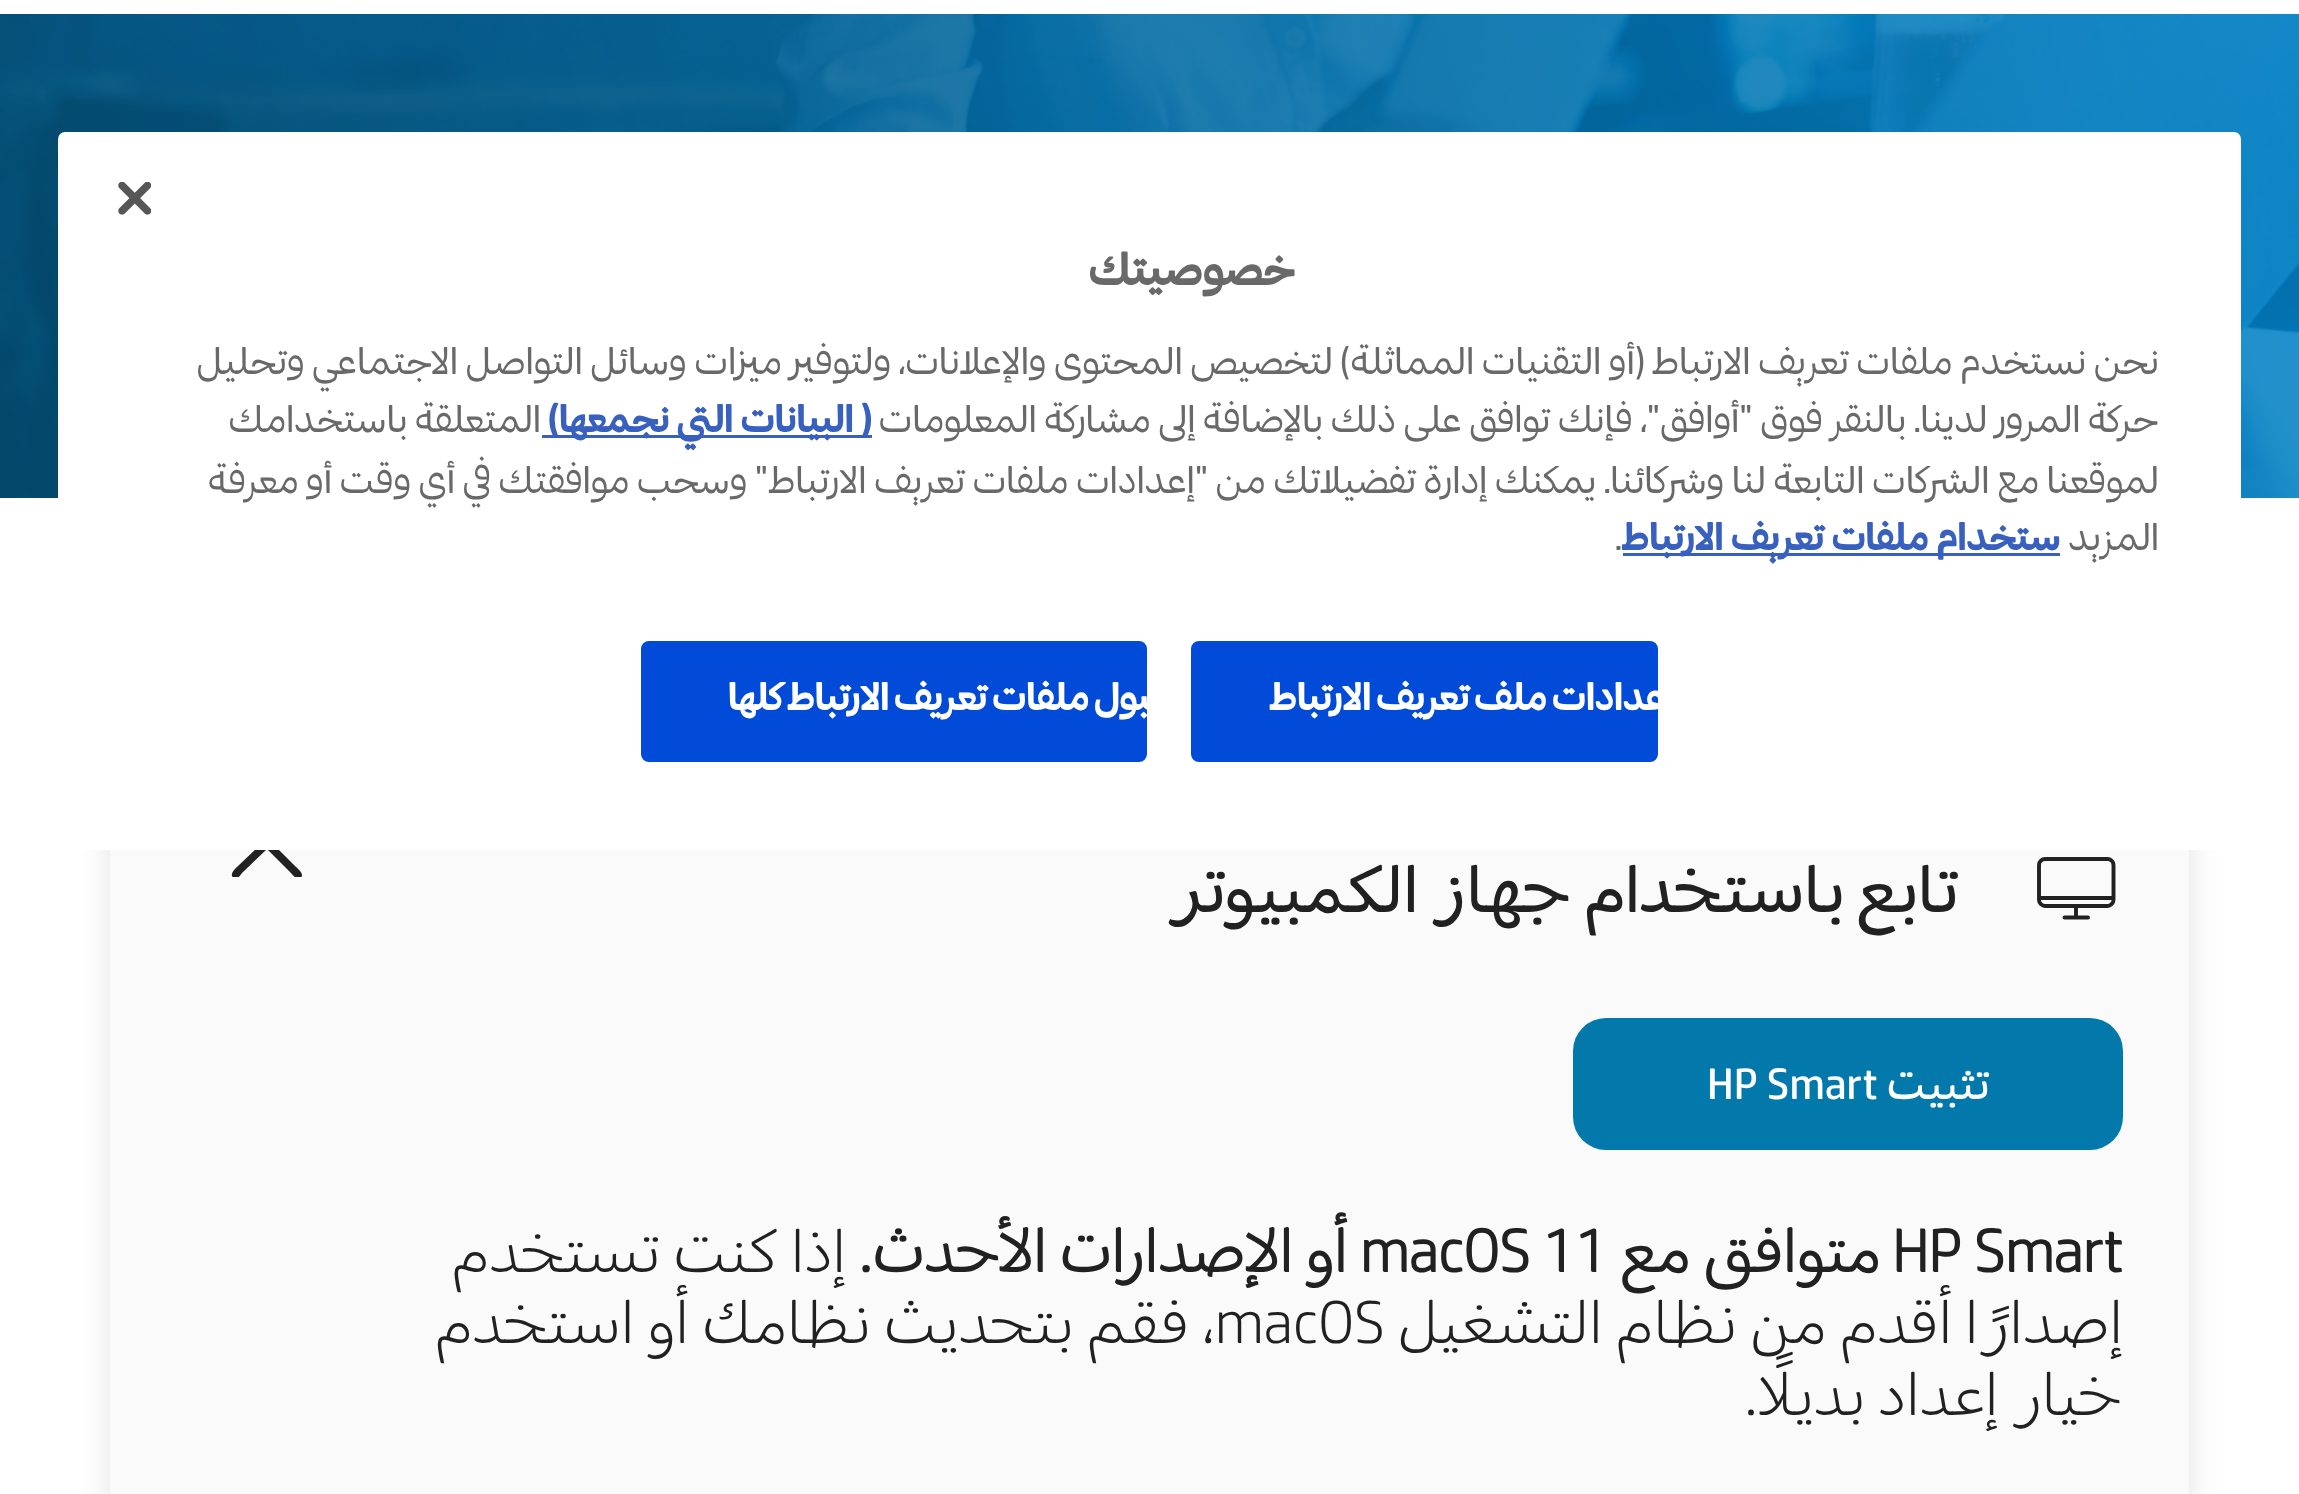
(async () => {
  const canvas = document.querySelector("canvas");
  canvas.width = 2299;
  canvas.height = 1494;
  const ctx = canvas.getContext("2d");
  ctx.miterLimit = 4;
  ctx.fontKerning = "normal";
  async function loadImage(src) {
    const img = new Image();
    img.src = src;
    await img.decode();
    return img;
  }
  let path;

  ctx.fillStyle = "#ffffff";
  ctx.fillRect(0, 0, 2299, 1494);
  ctx.drawImage(await loadImage("img/2.png"), 0, 14, 2299, 484);
  ctx.fillStyle = "rgba(0, 0, 0, 0.11)";
  ctx.filter = "blur(15px)";
  ctx.beginPath();
  ctx.roundRect(110, 767, 2079, 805, 33);
  ctx.fill();
  ctx.filter = "none";
  ctx.fillStyle = "#fafafa";
  ctx.fillRect(110, 850, 2079, 644);
  ctx.save();
  ctx.beginPath();
  ctx.rect(231, 836, 72, 41);
  ctx.clip();
  ctx.fillStyle = "#212121";
  path = new Path2D("M267 839C270 839 273 844 275 846L295 866C297 868 306 875 300 878C296 880 292 874 290 872L267 849L243 872C241 874 238 880 234 878C228 875 236 868 238 866L259 846C260 844 263 839 267 839Z");
  ctx.fill(path);
  ctx.restore();
  ctx.fillStyle = "#ffffff";
  ctx.beginPath();
  ctx.roundRect(58, 132, 2183, 718, 7);
  ctx.fill();
  ctx.drawImage(await loadImage("img/1.png"), 118, 182, 33, 33);
  ctx.fillStyle = "#3860be";
  ctx.fillRect(542, 435, 330, 3);
  ctx.fillRect(1623, 553, 437, 3);
  ctx.fillStyle = "#024ad8";
  ctx.beginPath();
  ctx.roundRect(1189.5, 639.5, 470, 124, 9.5);
  ctx.fill();
  ctx.strokeStyle = "#ffffff";
  ctx.lineWidth = 3;
  ctx.stroke();
  ctx.beginPath();
  ctx.roundRect(639.5, 639.5, 509, 124, 9.5);
  ctx.fill();
  ctx.stroke();
  path = new Path2D("M2039 898H2113.5M2076 906V917.5M2064.5 917.5H2088M2039 900V865C2039 861.5 2042 859 2045 859H2107.5C2110.5 859 2113.5 861.5 2113.5 865V900C2113.5 903 2110.5 906 2107.5 906H2045C2042 906 2039 903 2039 900Z");
  ctx.strokeStyle = "#212121";
  ctx.lineWidth = 3.9;
  ctx.lineCap = "round";
  ctx.lineJoin = "round";
  ctx.stroke(path);
  ctx.fillStyle = "#0278ab";
  ctx.beginPath();
  ctx.roundRect(1573, 1018, 550, 132, 33);
  ctx.fill();
  ctx.direction = "rtl";
  ctx.font = "bold 46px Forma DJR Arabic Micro";
  ctx.fillStyle = "#696969";
  ctx.fillText("خصوصيتك", 1295, 285);
  ctx.font = "38.5px Forma DJR Arabic Micro";
  ctx.fillText("نحن نستخدم ملفات تعريف الارتباط (أو التقنيات المماثلة) لتخصيص المحتوى والإعلانات، ولتوفير ميزات وسائل التواصل الاجتماعي وتحليل", 2159, 374);
  ctx.fillText("حركة المرور لدينا. بالنقر فوق \"أوافق\"، فإنك توافق على ذلك بالإضافة إلى مشاركة المعلومات", 2159, 432);
  ctx.font = "bold 38.5px Forma DJR Arabic Micro";
  ctx.fillStyle = "#3860be";
  ctx.fillText("( البيانات التي نجمعها)", 871, 432);
  ctx.font = "38.5px Forma DJR Arabic Micro";
  ctx.fillStyle = "#696969";
  for (const [text, x, y] of [
    ["المتعلقة باستخدامك", 541, 432],
    ["لموقعنا مع الشركات التابعة لنا وشركائنا. يمكنك إدارة تفضيلاتك من \"إعدادات ملفات تعريف الارتباط\" وسحب موافقتك في أي وقت أو معرفة", 2159, 493],
    ["المزيد", 2159, 550],
  ]) {
    ctx.fillText(text, x, y);
  }
  ctx.font = "bold 38.5px Forma DJR Arabic Micro";
  ctx.fillStyle = "#3860be";
  ctx.fillText("ستخدام ملفات تعريف الارتباط", 2060, 550);
  ctx.direction = "ltr";
  ctx.font = "38.5px Forma DJR Arabic Micro";
  ctx.fillStyle = "#696969";
  ctx.fillText(".", 1615, 550);
  ctx.letterSpacing = "1.9px";
  ctx.wordSpacing = "-2.5px";
  ctx.direction = "rtl";
  ctx.font = "bold 38.5px Forma DJR Arabic Micro";
  ctx.fillStyle = "#ffffff";
  ctx.fillText("إعدادات ملف تعريف الارتباط", 1674, 710);
  ctx.fillText("قبول ملفات تعريف الارتباط كلها", 1168, 710);
  ctx.letterSpacing = "0px";
  ctx.wordSpacing = "0px";
  ctx.font = "66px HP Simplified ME";
  ctx.fillStyle = "#212121";
  ctx.fillText("تابع باستخدام جهاز الكمبيوتر", 1958, 912);
  ctx.font = "44px HP Simplified ME";
  ctx.fillStyle = "#ffffff";
  ctx.fillText("تثبيت", 1989, 1099);
  ctx.direction = "ltr";
  ctx.font = "44px 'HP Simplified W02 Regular'";
  ctx.fillText("HP Smart", 1707, 1099);
  ctx.font = "bold 60.5px 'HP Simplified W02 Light'";
  ctx.fillStyle = "#212121";
  ctx.fillText("HP Smart", 1892, 1272);
  ctx.direction = "rtl";
  ctx.font = "bold 60.5px HP Simplified ME";
  ctx.fillText("متوافق مع", 1880, 1272);
  ctx.direction = "ltr";
  ctx.font = "bold 60.5px 'HP Simplified W02 Light'";
  ctx.fillText("macOS 11", 1360, 1272);
  ctx.direction = "rtl";
  ctx.font = "bold 60.5px HP Simplified ME";
  ctx.fillText("أو الإصدارات الأحدث", 1347, 1272);
  ctx.font = "bold 60.5px 'HP Simplified W02 Light'";
  ctx.fillText(".", 872, 1272);
  ctx.font = "300 60.5px HP Simplified ME";
  ctx.fillText("إذا كنت تستخدم", 846, 1272);
  ctx.fillText("إصدارًا أقدم من نظام التشغيل", 2123, 1343);
  ctx.direction = "ltr";
  ctx.fillText("macOS", 1215, 1343);
  ctx.direction = "rtl";
  ctx.fillText("، فقم بتحديث نظامك أو استخدم", 1215, 1343);
  ctx.fillText("خيار إعداد بديلًا.", 2123, 1415);
})();
